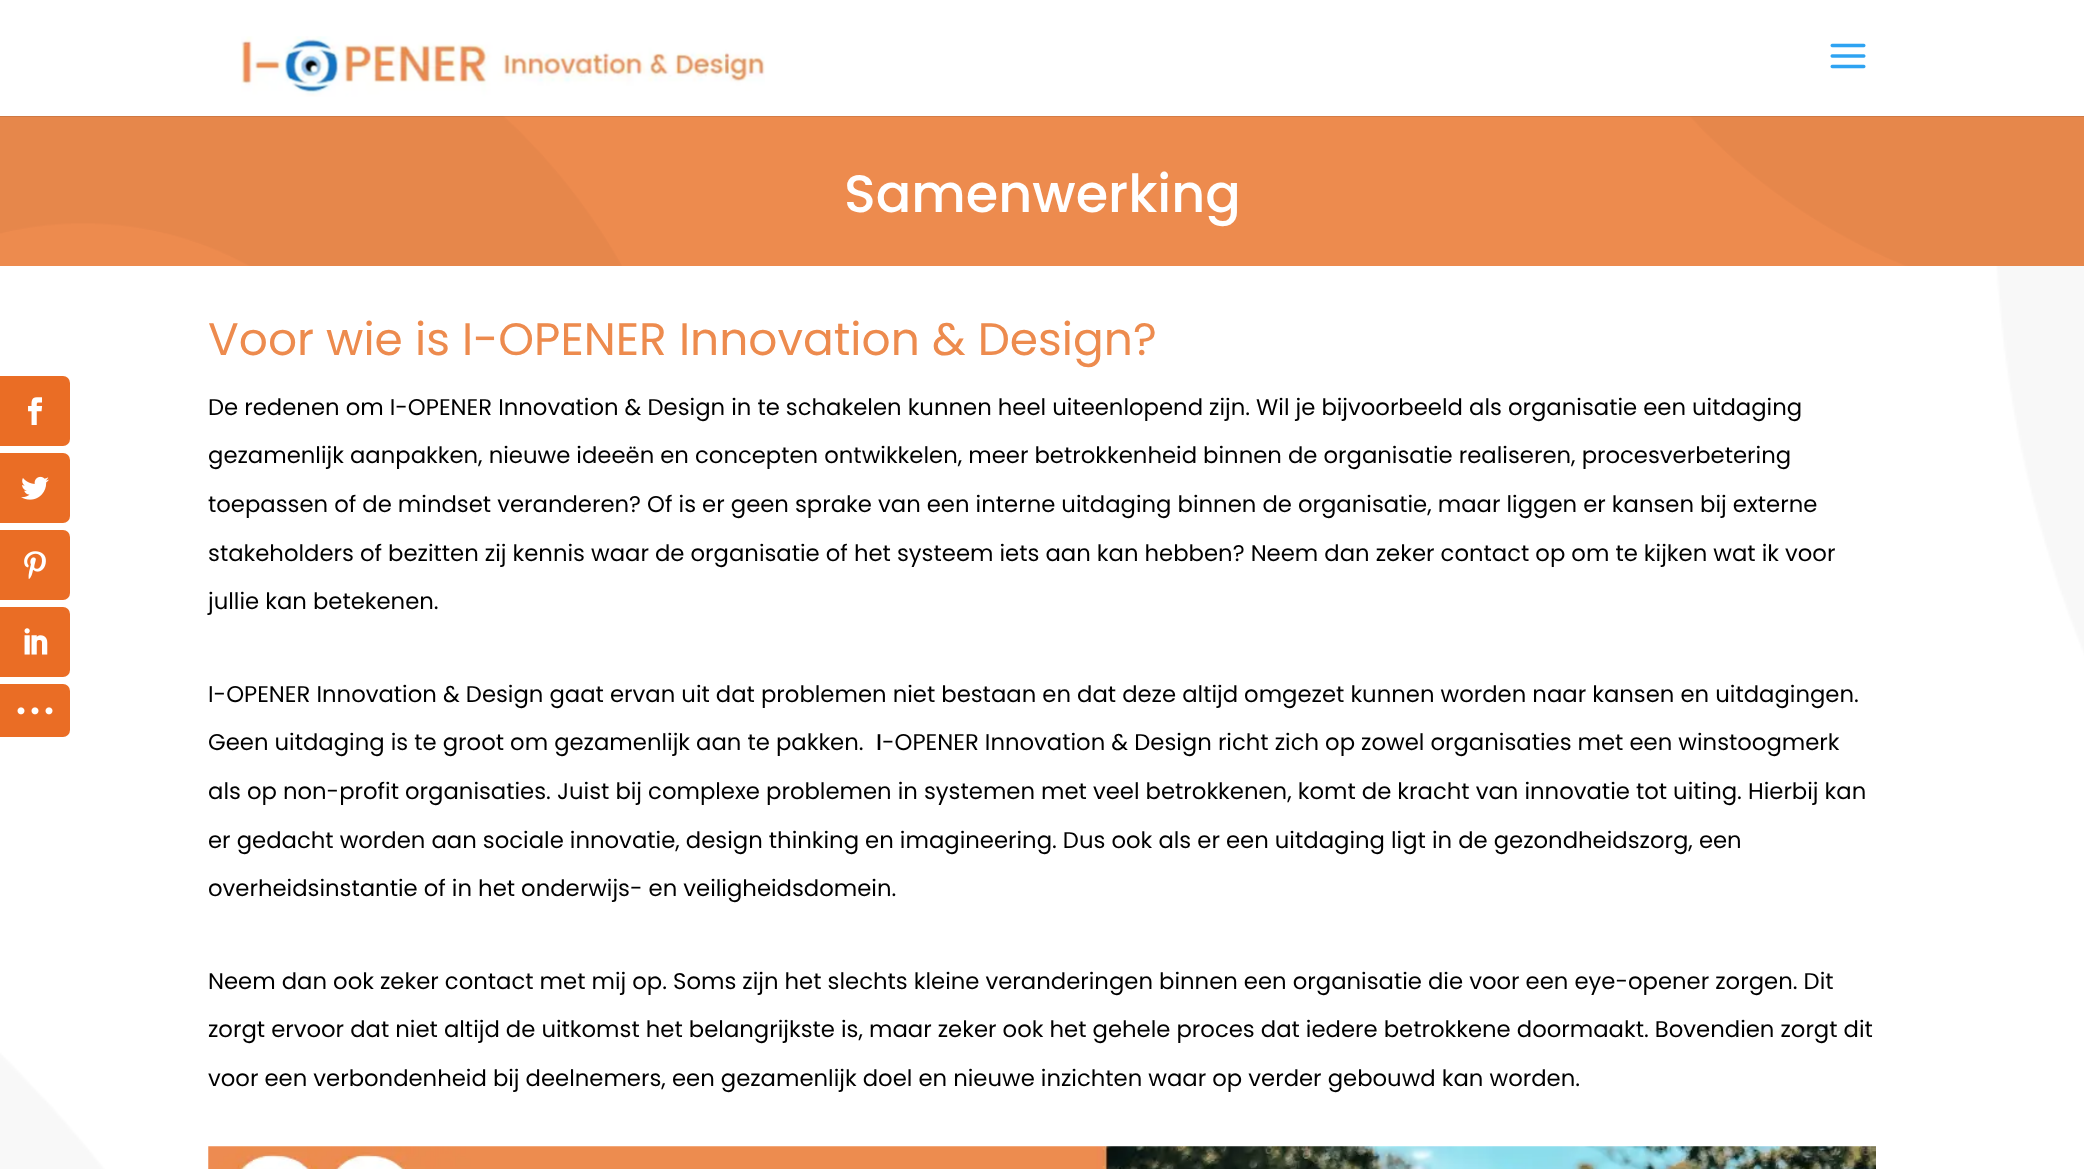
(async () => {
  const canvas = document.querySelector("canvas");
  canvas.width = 2084;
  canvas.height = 1169;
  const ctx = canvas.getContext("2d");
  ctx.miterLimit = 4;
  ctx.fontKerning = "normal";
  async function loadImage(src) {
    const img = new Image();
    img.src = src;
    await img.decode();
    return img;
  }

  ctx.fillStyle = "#ffffff";
  ctx.fillRect(0, 0, 2084, 1169);
  ctx.drawImage(await loadImage("img/9.png"), 0, 266, 2084, 903);
  ctx.fillStyle = "#ea6d25";
  ctx.beginPath();
  ctx.roundRect(0, 376, 70, 70, [0, 7, 7, 0]);
  ctx.fill();
  ctx.drawImage(await loadImage("img/1.png"), 28, 397, 15, 28);
  ctx.beginPath();
  ctx.roundRect(0, 453, 70, 70, [0, 7, 7, 0]);
  ctx.fill();
  ctx.drawImage(await loadImage("img/2.png"), 21, 476, 28, 24);
  ctx.beginPath();
  ctx.roundRect(0, 530, 70, 70, [0, 7, 7, 0]);
  ctx.fill();
  ctx.drawImage(await loadImage("img/3.png"), 24, 551, 22, 28);
  ctx.beginPath();
  ctx.roundRect(0, 607, 70, 70, [0, 7, 7, 0]);
  ctx.fill();
  ctx.drawImage(await loadImage("img/4.png"), 24, 628, 24, 27);
  ctx.beginPath();
  ctx.roundRect(0, 684, 70, 53, [0, 7, 7, 0]);
  ctx.fill();
  ctx.drawImage(await loadImage("img/5.png"), 17, 707, 36, 8);
  ctx.fillStyle = "#ed8b4e";
  ctx.fillRect(0, 116, 2084, 150);
  ctx.drawImage(await loadImage("img/8.png"), 0, 116, 2084, 150);
  ctx.fillStyle = "rgba(0, 0, 0, 0.1)";
  ctx.fillRect(0, 116, 2084, 1);
  ctx.drawImage(await loadImage("img/6.png"), 241, 36, 524, 61);
  ctx.drawImage(await loadImage("img/7.png"), 1830, 43, 36, 26);
  ctx.drawImage(await loadImage("img/10.png"), 208, 1146, 1668, 23);
  ctx.font = "500 52.5px Poppins";
  ctx.fillStyle = "#ffffff";
  ctx.fillText("Samenwerking", 844, 212);
  ctx.font = "45.5px Poppins";
  ctx.fillStyle = "#ed8b4e";
  ctx.fillText("Voor wie is I-OPENER Innovation & Design?", 208, 355);
  ctx.font = "22.75px Poppins";
  ctx.fillStyle = "#000000";
  for (const [text, x, y] of [
    ["De redenen om I-OPENER Innovation & Design in te schakelen kunnen heel uiteenlopend zijn. Wil je bijvoorbeeld als organisatie een uitdaging", 208, 415],
    ["gezamenlijk aanpakken, nieuwe ideeën en concepten ontwikkelen, meer betrokkenheid binnen de organisatie realiseren, procesverbetering", 208, 463],
    ["toepassen of de mindset veranderen? Of is er geen sprake van een interne uitdaging binnen de organisatie, maar liggen er kansen bij externe", 208, 512],
    ["stakeholders of bezitten zij kennis waar de organisatie of het systeem iets aan kan hebben? Neem dan zeker contact op om te kijken wat ik voor", 208, 561],
    ["jullie kan betekenen.", 208, 609],
    ["I-OPENER Innovation & Design gaat ervan uit dat problemen niet bestaan en dat deze altijd omgezet kunnen worden naar kansen en uitdagingen.", 208, 702],
    ["Geen uitdaging is te groot om gezamenlijk aan te pakken.", 208, 750],
  ]) {
    ctx.fillText(text, x, y);
  }
  ctx.font = "500 22.75px Poppins";
  ctx.fillText("I", 876, 750);
  ctx.font = "22.75px Poppins";
  for (const [text, x, y] of [
    ["-OPENER Innovation & Design richt zich op zowel organisaties met een winstoogmerk", 882, 750],
    ["als op non-profit organisaties. Juist bij complexe problemen in systemen met veel betrokkenen, komt de kracht van innovatie tot uiting. Hierbij kan", 208, 799],
    ["er gedacht worden aan sociale innovatie, design thinking en imagineering. Dus ook als er een uitdaging ligt in de gezondheidszorg, een", 208, 848],
    ["overheidsinstantie of in het onderwijs- en veiligheidsdomein.", 208, 896],
    ["Neem dan ook zeker contact met mij op. Soms zijn het slechts kleine veranderingen binnen een organisatie die voor een eye-opener zorgen. Dit", 208, 989],
    ["zorgt ervoor dat niet altijd de uitkomst het belangrijkste is, maar zeker ook het gehele proces dat iedere betrokkene doormaakt. Bovendien zorgt dit", 208, 1037],
    ["voor een verbondenheid bij deelnemers, een gezamenlijk doel en nieuwe inzichten waar op verder gebouwd kan worden.", 208, 1086],
  ]) {
    ctx.fillText(text, x, y);
  }
})();
